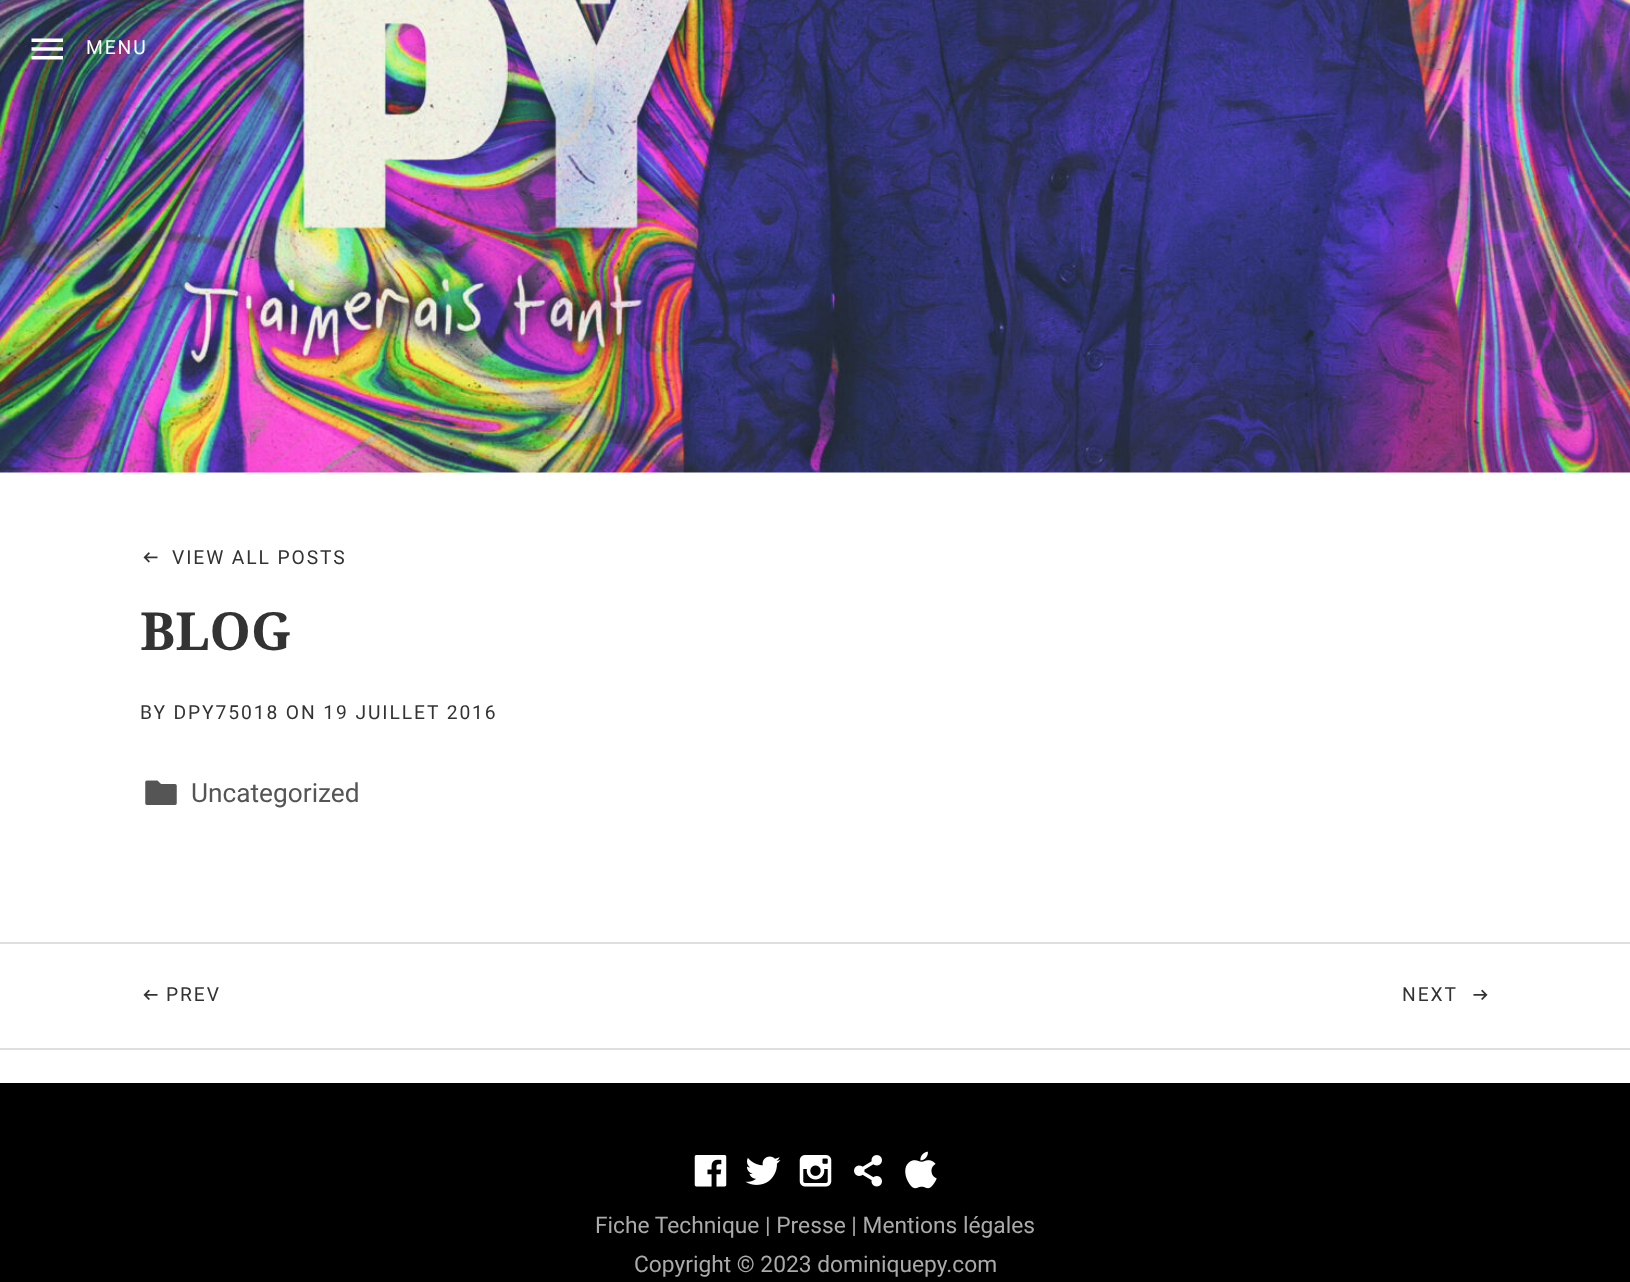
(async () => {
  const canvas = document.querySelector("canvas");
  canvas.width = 1630;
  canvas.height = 1282;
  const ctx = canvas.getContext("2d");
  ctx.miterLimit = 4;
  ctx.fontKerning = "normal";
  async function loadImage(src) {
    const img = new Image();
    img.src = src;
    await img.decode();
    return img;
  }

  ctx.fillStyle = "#ffffff";
  ctx.fillRect(0, 0, 1630, 1282);
  ctx.drawImage(await loadImage("img/1.png"), 0, 0, 1630, 473);
  ctx.drawImage(await loadImage("img/2.png"), 31, 38, 32, 22);
  ctx.drawImage(await loadImage("img/3.png"), 143, 552, 15, 11);
  ctx.drawImage(await loadImage("img/4.png"), 145, 780, 32, 25);
  ctx.fillStyle = "#dedede";
  ctx.fillRect(0, 942, 1630, 2);
  ctx.fillRect(0, 1048, 1630, 2);
  ctx.drawImage(await loadImage("img/5.png"), 143, 989, 15, 11);
  ctx.drawImage(await loadImage("img/6.png"), 1473, 989, 15, 11);
  ctx.fillStyle = "#000000";
  ctx.fillRect(0, 1083, 1630, 199);
  ctx.drawImage(await loadImage("img/7.png"), 694, 1155, 33, 32);
  ctx.drawImage(await loadImage("img/8.png"), 745, 1156, 36, 29);
  ctx.drawImage(await loadImage("img/9.png"), 799, 1155, 33, 32);
  ctx.drawImage(await loadImage("img/10.png"), 854, 1155, 28, 32);
  ctx.drawImage(await loadImage("img/11.png"), 905, 1151, 32, 38);
  ctx.letterSpacing = "1.9px";
  ctx.font = "19.25px Roboto";
  ctx.fillStyle = "#ffffff";
  ctx.fillText("MENU", 86, 54);
  ctx.fillStyle = "#333333";
  ctx.fillText("VIEW ALL POSTS", 172, 564);
  ctx.letterSpacing = "0px";
  ctx.font = "bold 52.5px Noto Serif";
  ctx.fillText("BLOG", 140, 650);
  ctx.letterSpacing = "1.9px";
  ctx.font = "19.25px Roboto";
  ctx.fillText("BY DPY75018 ON 19 JUILLET 2016", 140, 719);
  ctx.letterSpacing = "0px";
  ctx.font = "26.25px Roboto";
  ctx.fillStyle = "#555555";
  ctx.fillText("Uncategorized", 191, 802);
  ctx.letterSpacing = "1.9px";
  ctx.font = "19.25px Roboto";
  ctx.fillStyle = "#333333";
  ctx.fillText("PREV", 166, 1001);
  ctx.fillText("NEXT", 1402, 1001);
  ctx.letterSpacing = "0px";
  ctx.font = "22.75px Roboto";
  ctx.fillStyle = "#aaaaaa";
  ctx.fillText("Fiche Technique | Presse | Mentions légales", 595, 1233);
  ctx.fillText("Copyright © 2023 dominiquepy.com", 634, 1272);
})();
